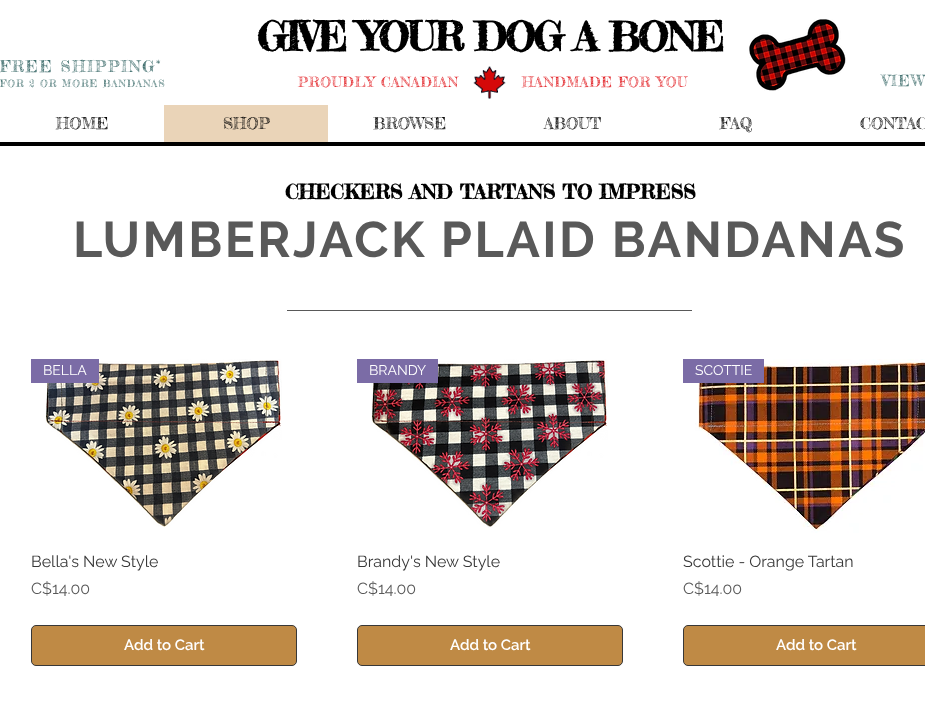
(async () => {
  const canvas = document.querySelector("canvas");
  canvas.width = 925;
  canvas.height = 705;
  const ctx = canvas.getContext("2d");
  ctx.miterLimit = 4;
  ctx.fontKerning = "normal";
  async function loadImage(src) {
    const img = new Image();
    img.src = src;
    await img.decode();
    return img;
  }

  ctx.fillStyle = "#ffffff";
  ctx.fillRect(0, 0, 925, 705);
  ctx.drawImage(await loadImage("img/1.png"), 749, 19, 97, 72);
  ctx.drawImage(await loadImage("img/2.png"), 473, 66, 33, 33);
  for (const [x, y, w, h, color] of [
    [0, 142, 925, 4, "#000000"],
    [164, 105, 164, 37, "#ead4b8"],
    [287, 310, 405, 1, "#595959"],
  ]) {
    ctx.fillStyle = color;
    ctx.fillRect(x, y, w, h);
  }
  ctx.drawImage(await loadImage("img/3.png"), 45, 359, 237, 168);
  ctx.fillStyle = "#7b6ca6";
  ctx.fillRect(31, 359, 68, 24);
  ctx.fillStyle = "#bf8a45";
  ctx.beginPath();
  ctx.roundRect(31.5, 625.5, 265, 40, 4.5);
  ctx.fill();
  ctx.strokeStyle = "#383838";
  ctx.stroke();
  ctx.drawImage(await loadImage("img/4.png"), 371, 359, 237, 169);
  ctx.fillStyle = "#7b6ca6";
  ctx.fillRect(357, 359, 81, 24);
  ctx.fillStyle = "#bf8a45";
  ctx.beginPath();
  ctx.roundRect(357.5, 625.5, 265, 40, 4.5);
  ctx.fill();
  ctx.stroke();
  ctx.drawImage(await loadImage("img/5.png"), 695, 359, 230, 174);
  ctx.fillStyle = "#7b6ca6";
  ctx.fillRect(683, 359, 81, 24);
  ctx.fillStyle = "#bf8a45";
  ctx.beginPath();
  ctx.roundRect(683.5, 625.5, 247, 40, 4.5);
  ctx.fill();
  ctx.stroke();
  ctx.letterSpacing = "-2px";
  ctx.font = "bold 40px Fredericka the Great";
  ctx.fillStyle = "#000000";
  ctx.fillText("GIVE YOUR DOG A BONE", 257, 51);
  ctx.letterSpacing = "1.6px";
  ctx.font = "16px Fredericka the Great";
  ctx.fillStyle = "#3e6d6c";
  ctx.fillText("FREE SHIPPING", 0, 72);
  ctx.letterSpacing = "1px";
  ctx.font = "11px Fredericka the Great";
  ctx.fillText("*", 156, 68);
  ctx.font = "10px Fredericka the Great";
  ctx.fillText("FOR 2 OR MORE BANDANAS", 0, 87);
  ctx.letterSpacing = "0.75px";
  ctx.font = "14px Fredericka the Great";
  ctx.fillStyle = "#e21c21";
  ctx.fillText("PROUDLY CANADIAN", 298, 87);
  ctx.fillText("HANDMADE FOR YOU", 522, 87);
  ctx.letterSpacing = "1.5px";
  ctx.font = "15px Fredericka the Great";
  ctx.fillStyle = "#3e6d6c";
  ctx.fillText("VIEW", 882, 86);
  ctx.letterSpacing = "0px";
  ctx.font = "16px Fredericka the Great";
  ctx.fillStyle = "#000000";
  for (const [text, x, y] of [
    ["HOME", 56, 129],
    ["SHOP", 223, 129],
    ["BROWSE", 373, 129],
    ["ABOUT", 544, 129],
    ["FAQ", 720, 129],
    ["CONTAC", 860, 129],
  ]) {
    ctx.fillText(text, x, y);
  }
  ctx.font = "bold 20px Fredericka the Great";
  ctx.fillText("CHECKERS AND TARTANS TO IMPRESS", 285, 199);
  ctx.letterSpacing = "2.5px";
  ctx.font = "bold 50px Raleway";
  ctx.fillStyle = "#595959";
  ctx.fillText("LUMBERJACK PLAID BANDANAS", 73, 257);
  ctx.letterSpacing = "0px";
  ctx.font = "14px Raleway";
  ctx.fillStyle = "#ffffff";
  ctx.fillText("BELLA", 43, 375);
  ctx.font = "16px Raleway";
  ctx.fillStyle = "#383838";
  ctx.fillText("Bella's New Style", 31, 567);
  ctx.fillStyle = "#595959";
  ctx.fillText("C$14.00", 31, 594);
  ctx.font = "600 15px Raleway";
  ctx.fillStyle = "#ffffff";
  ctx.fillText("Add to Cart", 124, 650);
  ctx.font = "14px Raleway";
  ctx.fillText("BRANDY", 369, 375);
  ctx.font = "16px Raleway";
  ctx.fillStyle = "#383838";
  ctx.fillText("Brandy's New Style", 357, 567);
  ctx.fillStyle = "#595959";
  ctx.fillText("C$14.00", 357, 594);
  ctx.font = "600 15px Raleway";
  ctx.fillStyle = "#ffffff";
  ctx.fillText("Add to Cart", 450, 650);
  ctx.font = "14px Raleway";
  ctx.fillText("SCOTTIE", 695, 375);
  ctx.font = "16px Raleway";
  ctx.fillStyle = "#383838";
  ctx.fillText("Scottie - Orange Tartan", 683, 567);
  ctx.fillStyle = "#595959";
  ctx.fillText("C$14.00", 683, 594);
  ctx.font = "600 15px Raleway";
  ctx.fillStyle = "#ffffff";
  ctx.fillText("Add to Cart", 776, 650);
})();
